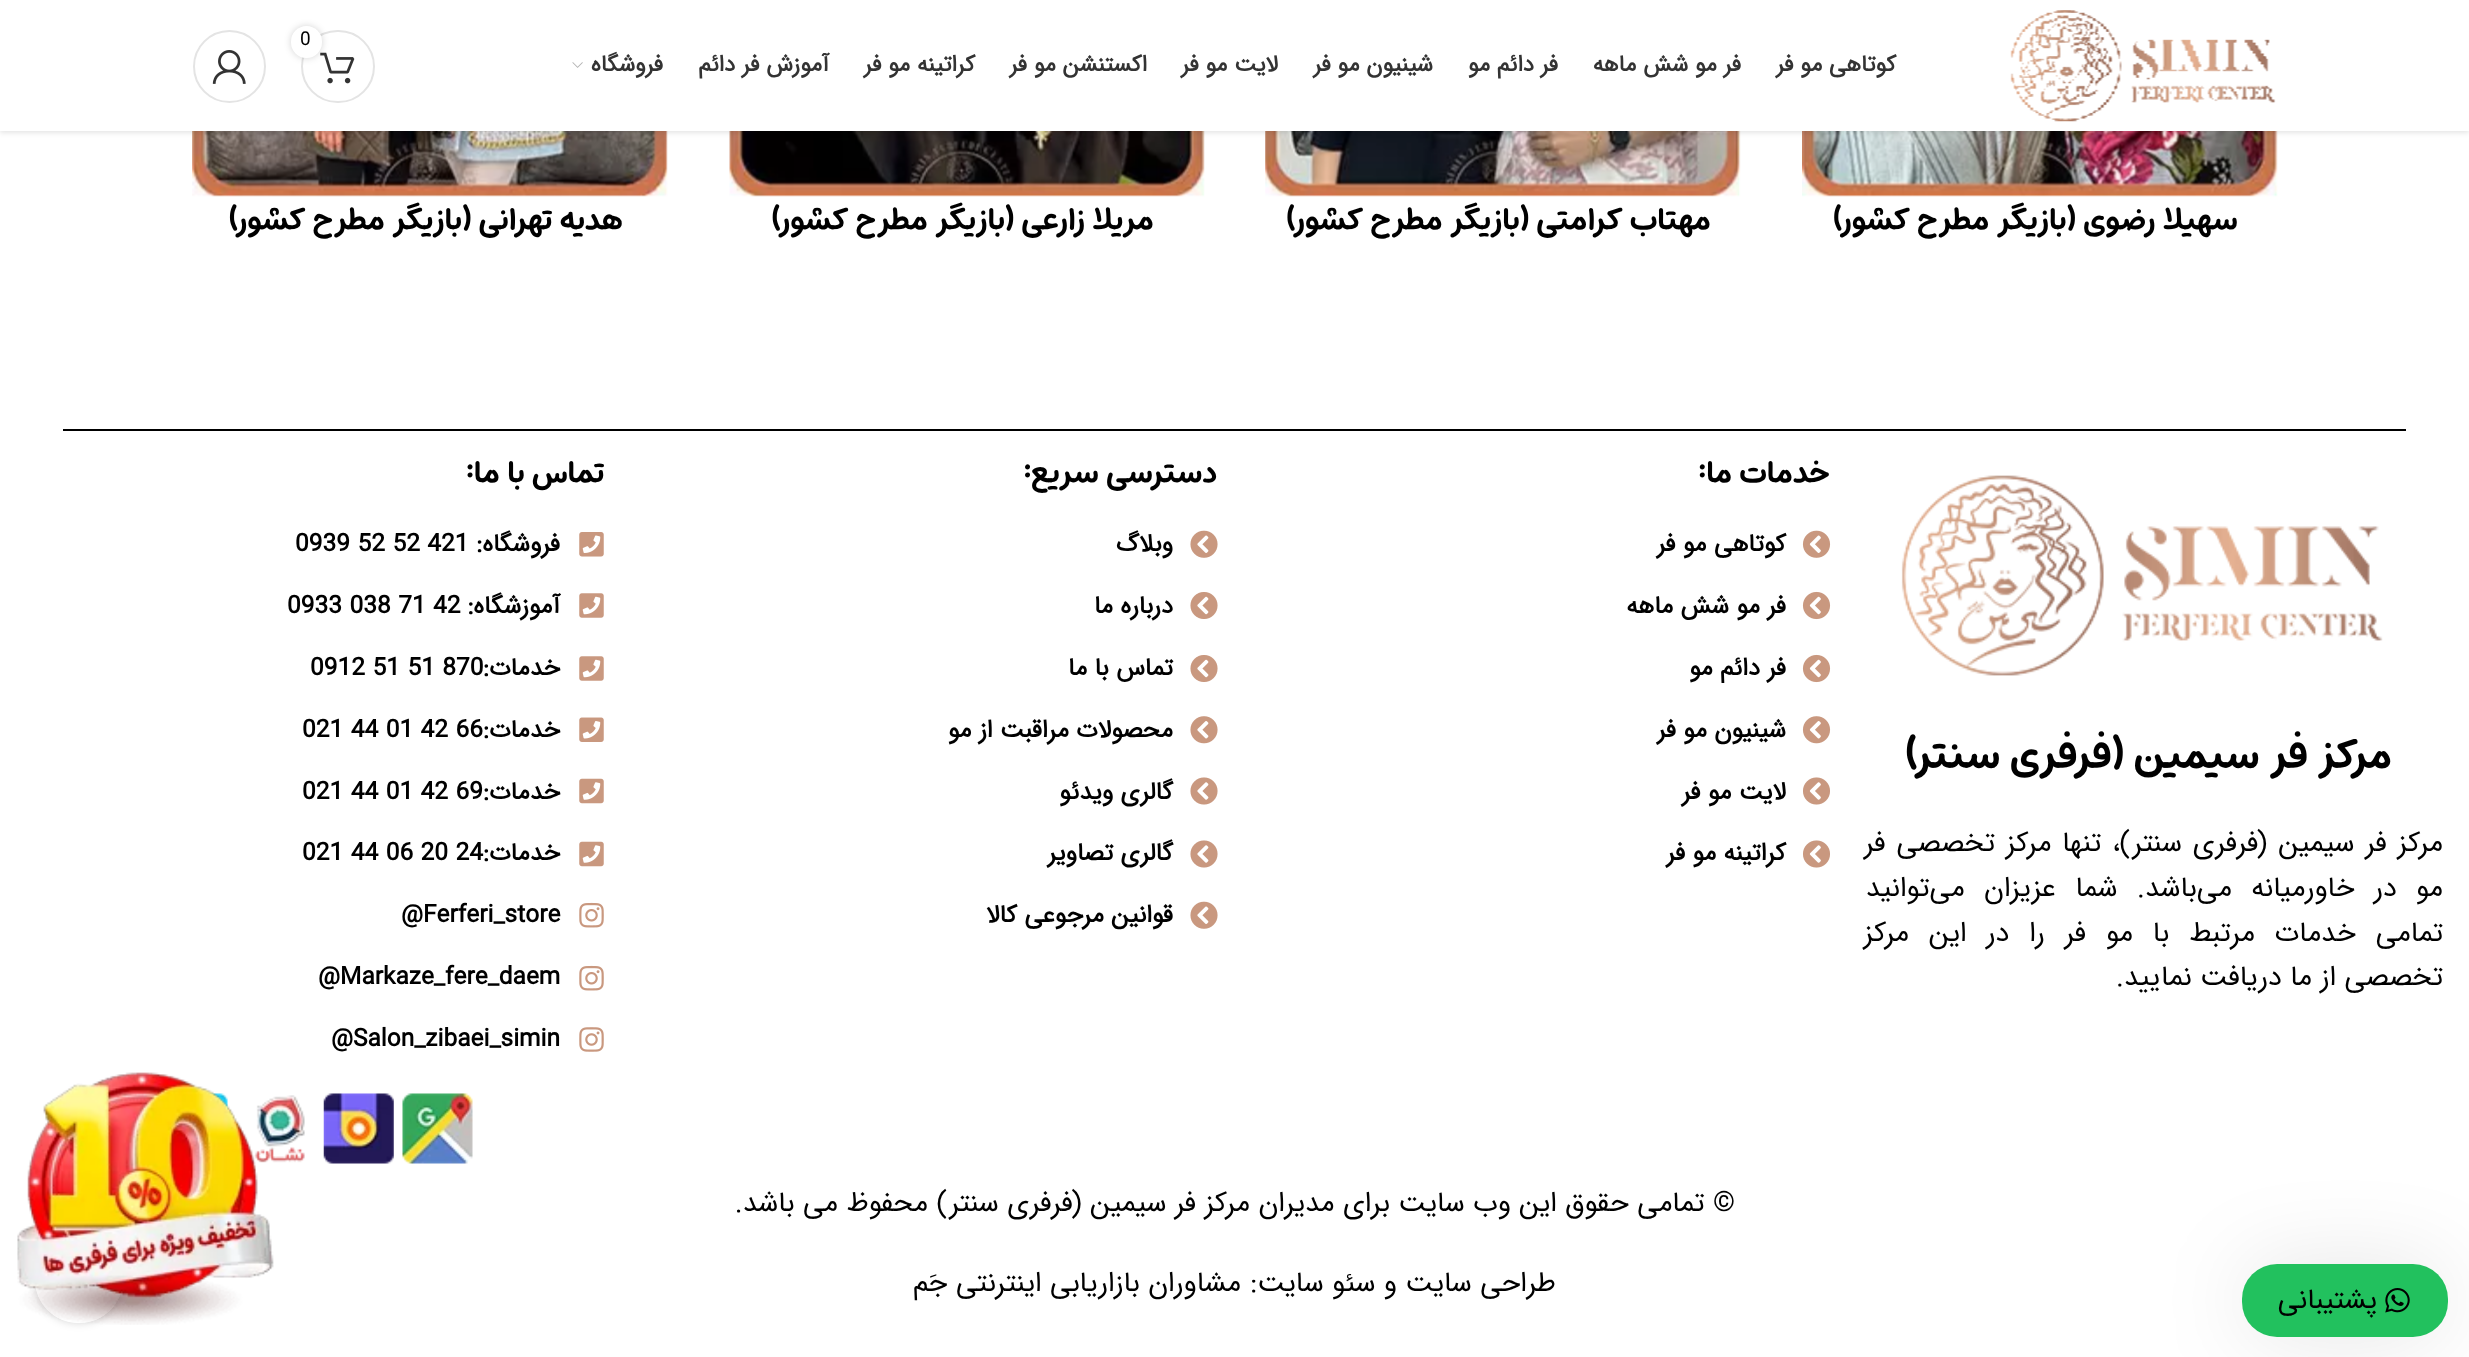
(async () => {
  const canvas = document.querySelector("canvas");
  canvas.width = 2469;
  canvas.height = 1357;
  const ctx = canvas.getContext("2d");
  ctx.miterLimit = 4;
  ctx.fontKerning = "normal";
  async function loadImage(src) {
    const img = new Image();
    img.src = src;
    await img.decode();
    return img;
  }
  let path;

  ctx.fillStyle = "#ffffff";
  ctx.fillRect(0, 0, 2469, 1357);
  ctx.drawImage(await loadImage("img/5.png"), 1802, 131, 476, 66);
  ctx.drawImage(await loadImage("img/6.png"), 1265, 131, 476, 66);
  ctx.drawImage(await loadImage("img/7.png"), 729, 131, 476, 66);
  ctx.drawImage(await loadImage("img/8.png"), 192, 131, 476, 66);
  ctx.fillStyle = "rgba(0, 0, 0, 0.1)";
  ctx.filter = "blur(2.5px)";
  ctx.beginPath();
  ctx.rect(0, 2, 2469, 131);
  ctx.fill();
  ctx.filter = "none";
  ctx.fillStyle = "#ffffff";
  ctx.fillRect(0, 0, 2469, 131);
  ctx.drawImage(await loadImage("img/1.png"), 2010, 10, 266, 112);
  ctx.beginPath();
  ctx.roundRect(302, 31, 72, 71, 35.5);
  ctx.strokeStyle = "#e4e4e4";
  ctx.lineWidth = 2;
  ctx.stroke();
  ctx.drawImage(await loadImage("img/2.png"), 320, 52, 35, 32);
  ctx.fillStyle = "rgba(0, 0, 0, 0.17)";
  ctx.filter = "blur(3.5px)";
  ctx.beginPath();
  ctx.roundRect(291, 26, 31, 32, 15.5);
  ctx.fill();
  ctx.filter = "none";
  ctx.fillStyle = "#ffffff";
  ctx.beginPath();
  ctx.roundRect(291, 26, 31, 32, 15.5);
  ctx.fill();
  ctx.beginPath();
  ctx.arc(229.5, 66.5, 35.5, 0, Math.PI * 2);
  ctx.stroke();
  ctx.drawImage(await loadImage("img/3.png"), 212, 50, 34, 34);
  ctx.drawImage(await loadImage("img/4.png"), 572, 62, 11, 6);
  ctx.fillStyle = "#000000";
  ctx.fillRect(63, 429, 2343, 2);
  ctx.drawImage(await loadImage("img/9.png"), 1901, 475, 482, 201);
  ctx.drawImage(await loadImage("img/10.png"), 1802, 530, 29, 28);
  ctx.drawImage(await loadImage("img/11.png"), 1802, 591, 29, 29);
  ctx.drawImage(await loadImage("img/11.png"), 1802, 654, 29, 29);
  ctx.drawImage(await loadImage("img/12.png"), 1802, 716, 29, 28);
  ctx.drawImage(await loadImage("img/13.png"), 1803, 777, 27, 28);
  ctx.drawImage(await loadImage("img/13.png"), 1803, 840, 27, 28);
  ctx.drawImage(await loadImage("img/14.png"), 1190, 530, 28, 28);
  ctx.drawImage(await loadImage("img/15.png"), 1190, 592, 28, 27);
  ctx.drawImage(await loadImage("img/15.png"), 1190, 655, 28, 27);
  ctx.drawImage(await loadImage("img/16.png"), 1190, 716, 28, 28);
  ctx.drawImage(await loadImage("img/17.png"), 1190, 777, 28, 28);
  ctx.drawImage(await loadImage("img/17.png"), 1190, 840, 28, 28);
  ctx.drawImage(await loadImage("img/14.png"), 1190, 901, 28, 28);
  ctx.drawImage(await loadImage("img/18.png"), 579, 532, 25, 25);
  ctx.drawImage(await loadImage("img/19.png"), 579, 593, 25, 25);
  ctx.drawImage(await loadImage("img/19.png"), 579, 656, 25, 25);
  ctx.drawImage(await loadImage("img/20.png"), 579, 717, 25, 25);
  ctx.drawImage(await loadImage("img/21.png"), 579, 778, 25, 26);
  ctx.drawImage(await loadImage("img/21.png"), 579, 841, 25, 26);
  ctx.drawImage(await loadImage("img/22.png"), 579, 902, 25, 26);
  ctx.drawImage(await loadImage("img/22.png"), 579, 965, 25, 26);
  ctx.drawImage(await loadImage("img/23.png"), 579, 1027, 25, 25);
  ctx.drawImage(await loadImage("img/24.png"), 402, 1093, 71, 71);
  ctx.drawImage(await loadImage("img/25.png"), 323, 1093, 71, 71);
  ctx.drawImage(await loadImage("img/26.png"), 254, 1095, 51, 68);
  ctx.drawImage(await loadImage("img/27.png"), 172, 1093, 56, 69);
  ctx.save();
  path = new Path2D("M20 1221H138V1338H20ZM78.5 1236H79.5C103.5 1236 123 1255.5 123 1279.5C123 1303.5 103.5 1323 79.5 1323H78.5C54.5 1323 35 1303.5 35 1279.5C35 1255.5 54.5 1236 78.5 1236Z");
  ctx.clip(path, "evenodd");
  ctx.fillStyle = "rgba(0, 0, 0, 0.17)";
  ctx.filter = "blur(4.5px)";
  ctx.beginPath();
  ctx.roundRect(35, 1236, 88, 87, 43.5);
  ctx.fill();
  ctx.filter = "none";
  ctx.restore();
  ctx.fillStyle = "rgba(255, 255, 255, 0.9)";
  ctx.beginPath();
  ctx.roundRect(35, 1236, 88, 87, 43.5);
  ctx.fill();
  ctx.drawImage(await loadImage("img/28.png"), 17, 1072, 257, 253);
  ctx.fillStyle = "rgba(0, 0, 0, 0.1)";
  ctx.filter = "blur(44px)";
  ctx.beginPath();
  ctx.roundRect(2242, 1264, 206, 73, 35);
  ctx.fill();
  ctx.filter = "none";
  ctx.fillStyle = "#22c15e";
  ctx.beginPath();
  ctx.roundRect(2242, 1264, 206, 73, 35);
  ctx.fill();
  ctx.drawImage(await loadImage("img/29.png"), 2385, 1288, 25, 25);
  ctx.font = "19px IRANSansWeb";
  ctx.fillStyle = "#000000";
  ctx.fillText("0", 300, 45);
  ctx.direction = "rtl";
  ctx.font = "bold 22.75px IRANSansWeb";
  ctx.fillStyle = "#333333";
  for (const [text, x, y] of [
    ["کوتاهی مو فر", 1896, 71],
    ["فر مو شش ماهه", 1741, 71],
    ["فر دائم مو", 1558, 71],
    ["شینیون مو فر", 1433, 71],
    ["لایت مو فر", 1278, 71],
    ["اکستنشن مو فر", 1147, 71],
    ["کراتینه مو فر", 975, 71],
    ["آموزش فر دائم", 829, 71],
    ["فروشگاه", 663, 71],
  ]) {
    ctx.fillText(text, x, y);
  }
  ctx.font = "bold 31.5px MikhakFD";
  ctx.fillStyle = "#000000";
  for (const [text, x, y] of [
    ["سهیلا رضوی (بازیگر مطرح کشور)", 2238, 228],
    ["مهتاب کرامتی (بازیگر مطرح کشور)", 1711, 228],
    ["مریلا زارعی (بازیگر مطرح کشور)", 1154, 228],
    ["هدیه تهرانی (بازیگر مطرح کشور)", 623, 228],
  ]) {
    ctx.fillText(text, x, y);
  }
  ctx.font = "bold 42px MikhakFD";
  ctx.fillText("مرکز فر سیمین (فرفری سنتر)", 2392, 766);
  ctx.wordSpacing = "2.5px";
  ctx.font = "28px IRANSansWeb";
  ctx.fillText("مرکز فر سیمین (فرفری سنتر)", 2443, 851);
  ctx.fillText("، تنها مرکز تخصصی فر", 2120, 851);
  ctx.wordSpacing = "11px";
  ctx.fillText("مو در خاورمیانه می‌باشد. شما عزیزان می‌توانید", 2443, 896);
  ctx.wordSpacing = "11.5px";
  ctx.fillText("تمامی خدمات مرتبط با مو فر را در این مرکز", 2443, 941);
  ctx.wordSpacing = "0px";
  ctx.fillText("تخصصی از ما دریافت نمایید.", 2443, 985);
  ctx.font = "bold 31.5px MikhakFD";
  ctx.fillText("خدمات ما:", 1830, 481);
  ctx.font = "bold 24.5px IRANSansWeb";
  for (const [text, x, y] of [
    ["کوتاهی مو فر", 1786, 551],
    ["فر مو شش ماهه", 1786, 613],
    ["فر دائم مو", 1786, 675],
    ["شینیون مو فر", 1786, 737],
    ["لایت مو فر", 1786, 799],
    ["کراتینه مو فر", 1786, 860],
  ]) {
    ctx.fillText(text, x, y);
  }
  ctx.font = "bold 31.5px MikhakFD";
  ctx.fillText("دسترسی سریع:", 1217, 481);
  ctx.font = "bold 24.5px IRANSansWeb";
  for (const [text, x, y] of [
    ["وبلاگ", 1173, 551],
    ["درباره ما", 1173, 613],
    ["تماس با ما", 1173, 675],
    ["محصولات مراقبت از مو", 1173, 737],
    ["گالری ویدئو", 1173, 799],
    ["گالری تصاویر", 1173, 860],
    ["قوانین مرجوعی کالا", 1173, 922],
  ]) {
    ctx.fillText(text, x, y);
  }
  ctx.font = "bold 31.5px MikhakFD";
  ctx.fillText("تماس با ما:", 604, 481);
  ctx.font = "bold 24.5px IRANSansWeb";
  ctx.fillText("فروشگاه:", 560, 551);
  ctx.direction = "ltr";
  ctx.fillText("0939 52 52 421", 295, 551);
  ctx.direction = "rtl";
  ctx.fillText("آموزشگاه:", 560, 613);
  ctx.direction = "ltr";
  ctx.fillText("0933 038 71 42", 287, 613);
  ctx.direction = "rtl";
  ctx.fillText("خدمات:", 560, 675);
  ctx.direction = "ltr";
  ctx.fillText("0912 51 51 870", 310, 675);
  ctx.direction = "rtl";
  ctx.fillText("خدمات:", 560, 737);
  ctx.direction = "ltr";
  ctx.fillText("021 44 01 42 66", 302, 737);
  ctx.direction = "rtl";
  ctx.fillText("خدمات:", 560, 799);
  ctx.direction = "ltr";
  ctx.fillText("021 44 01 42 69", 302, 799);
  ctx.direction = "rtl";
  ctx.fillText("خدمات:", 560, 860);
  ctx.direction = "ltr";
  for (const [text, x, y] of [
    ["021 44 06 20 24", 302, 860],
    ["@Ferferi_store", 401, 922],
    ["@Markaze_fere_daem", 318, 984],
    ["@Salon_zibaei_simin", 331, 1046],
  ]) {
    ctx.fillText(text, x, y);
  }
  ctx.direction = "rtl";
  ctx.font = "28px IRANSansWeb";
  for (const [text, x, y] of [
    ["© تمامی حقوق این وب سایت برای مدیران مرکز فر سیمین (فرفری سنتر) محفوظ می باشد.", 1735, 1211],
    ["طراحی سایت و سئو سایت:", 1556, 1291],
    ["مشاوران بازاریابی اینترنتی جَم", 1241, 1291],
    ["پشتیبانی", 2377, 1308],
  ]) {
    ctx.fillText(text, x, y);
  }
})();
